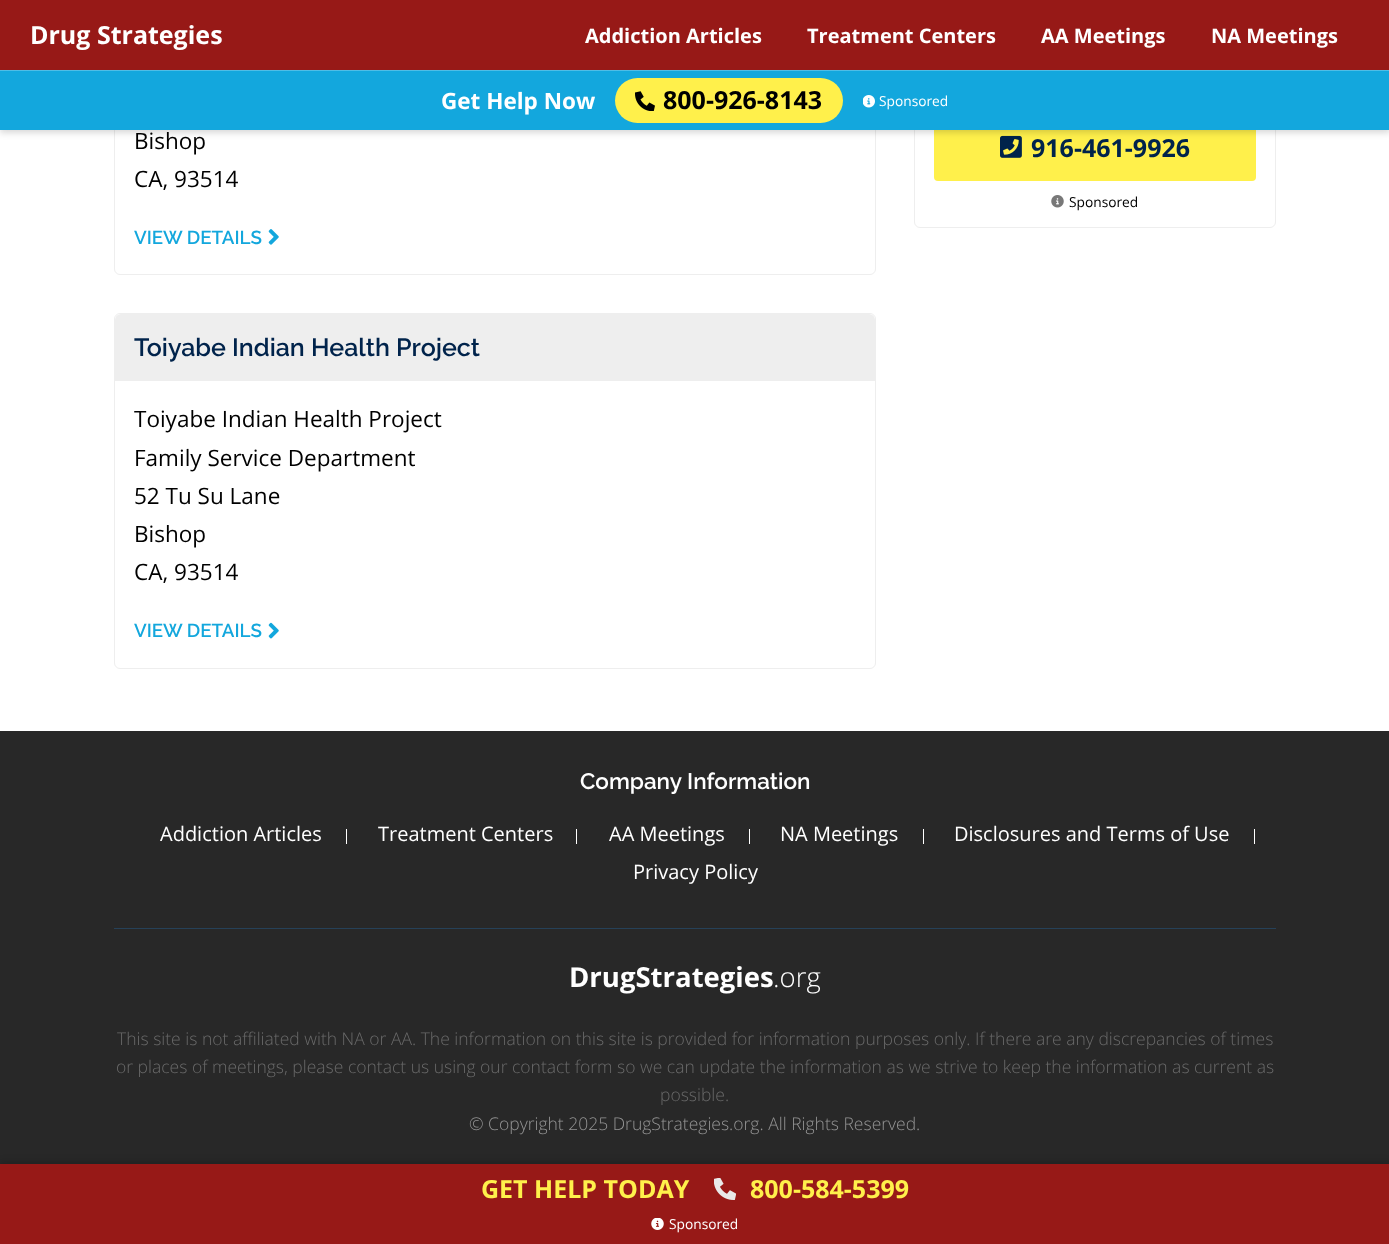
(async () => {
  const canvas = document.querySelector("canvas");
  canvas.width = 1389;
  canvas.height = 1244;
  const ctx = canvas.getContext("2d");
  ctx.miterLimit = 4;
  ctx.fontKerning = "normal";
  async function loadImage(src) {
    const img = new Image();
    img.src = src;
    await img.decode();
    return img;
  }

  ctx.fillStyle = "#ffffff";
  ctx.fillRect(0, 0, 1389, 1244);
  ctx.beginPath();
  ctx.roundRect(114.5, -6.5, 761, 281, 5.5);
  ctx.strokeStyle = "#eeeeee";
  ctx.stroke();
  ctx.beginPath();
  ctx.roundRect(914.5, -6.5, 361, 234, 5.5);
  ctx.stroke();
  ctx.fillStyle = "#fff04b";
  ctx.beginPath();
  ctx.roundRect(934, 116, 322, 65, 4);
  ctx.fill();
  ctx.drawImage(await loadImage("img/5.png"), 1000, 135, 22, 23);
  ctx.fillStyle = "rgba(0, 0, 0, 0.15)";
  ctx.filter = "blur(3px)";
  ctx.beginPath();
  ctx.rect(0, 3, 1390, 130);
  ctx.fill();
  ctx.filter = "none";
  for (const [x, y, w, h, color] of [
    [0, 0, 1389, 70, "#971917"],
    [0, 71, 1389, 59, "#13a7dd"],
    [0, 70, 1389, 1, "#4ebde6"],
  ]) {
    ctx.fillStyle = color;
    ctx.fillRect(x, y, w, h);
  }
  ctx.fillStyle = "#fff04b";
  ctx.beginPath();
  ctx.roundRect(615, 78, 228, 45, 22.5);
  ctx.fill();
  ctx.drawImage(await loadImage("img/1.png"), 635, 91, 20, 20);
  ctx.drawImage(await loadImage("img/2.png"), 863, 95, 12, 13);
  ctx.drawImage(await loadImage("img/3.png"), 268, 229, 11, 16);
  ctx.beginPath();
  ctx.roundRect(114.5, 313.5, 761, 355, 5.5);
  ctx.stroke();
  ctx.fillStyle = "#eeeeee";
  ctx.beginPath();
  ctx.roundRect(115, 314, 760, 67, [6, 6, 0, 0]);
  ctx.fill();
  ctx.drawImage(await loadImage("img/4.png"), 268, 622, 11, 17);
  ctx.drawImage(await loadImage("img/6.png"), 1051, 195, 13, 13);
  for (const [x, y, w, h, color] of [
    [0, 731, 1389, 433, "#282828"],
    [346, 829, 1, 15, "#ffffff"],
    [576, 829, 1, 15, "#ffffff"],
    [749, 829, 1, 15, "#ffffff"],
    [923, 829, 1, 15, "#ffffff"],
    [1254, 829, 1, 15, "#ffffff"],
    [114, 928, 1162, 1, "#264158"],
  ]) {
    ctx.fillStyle = color;
    ctx.fillRect(x, y, w, h);
  }
  ctx.fillStyle = "rgba(0, 0, 0, 0.15)";
  ctx.filter = "blur(3px)";
  ctx.beginPath();
  ctx.rect(0, 1161, 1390, 82);
  ctx.fill();
  ctx.filter = "none";
  ctx.fillStyle = "#971917";
  ctx.fillRect(0, 1164, 1389, 80);
  ctx.drawImage(await loadImage("img/7.png"), 714, 1178, 22, 22);
  ctx.drawImage(await loadImage("img/8.png"), 651, 1218, 13, 12);
  ctx.font = "bold 25px Open Sans";
  ctx.fillStyle = "#ffffff";
  ctx.fillText("Drug Strategies", 30, 44);
  ctx.font = "bold 20px Open Sans";
  for (const [text, x, y] of [
    ["Addiction Articles", 585, 43],
    ["Treatment Centers", 807, 43],
    ["AA Meetings", 1041, 43],
    ["NA Meetings", 1211, 43],
  ]) {
    ctx.fillText(text, x, y);
  }
  ctx.font = "bold 22.5px Open Sans";
  ctx.fillText("Get Help Now", 441, 109);
  ctx.font = "bold 25px Open Sans";
  ctx.fillStyle = "#000000";
  ctx.fillText("800-926-8143", 663, 109);
  ctx.font = "13.75px Open Sans";
  ctx.fillStyle = "#ffffff";
  ctx.fillText("Sponsored", 879, 106);
  ctx.font = "22.5px Open Sans";
  ctx.fillStyle = "#000000";
  ctx.fillText("Bishop", 134, 149);
  ctx.fillText("CA, 93514", 134, 187);
  ctx.font = "600 18.75px Raleway";
  ctx.fillStyle = "#13a7dd";
  ctx.fillText("VIEW DETAILS", 134, 244);
  ctx.font = "600 25px Raleway";
  ctx.fillStyle = "#00234b";
  ctx.fillText("Toiyabe Indian Health Project", 134, 356);
  ctx.font = "22.5px Open Sans";
  ctx.fillStyle = "#000000";
  for (const [text, x, y] of [
    ["Toiyabe Indian Health Project", 134, 427],
    ["Family Service Department", 134, 466],
    ["52 Tu Su Lane", 134, 504],
    ["Bishop", 134, 542],
    ["CA, 93514", 134, 580],
  ]) {
    ctx.fillText(text, x, y);
  }
  ctx.font = "600 18.75px Raleway";
  ctx.fillStyle = "#13a7dd";
  ctx.fillText("VIEW DETAILS", 134, 637);
  ctx.font = "bold 25px Open Sans";
  ctx.fillStyle = "#00234b";
  ctx.fillText("916-461-9926", 1031, 157);
  ctx.font = "13.75px Open Sans";
  ctx.fillStyle = "#000000";
  ctx.fillText("Sponsored", 1069, 207);
  ctx.font = "600 22.5px Raleway";
  ctx.fillStyle = "#ffffff";
  ctx.fillText("Company Information", 580, 789);
  ctx.font = "20px Open Sans";
  for (const [text, x, y] of [
    ["Addiction Articles", 160, 841],
    ["Treatment Centers", 378, 841],
    ["AA Meetings", 609, 841],
    ["NA Meetings", 780, 841],
    ["Disclosures and Terms of Use", 954, 841],
    ["Privacy Policy", 633, 879],
  ]) {
    ctx.fillText(text, x, y);
  }
  ctx.font = "bold 27.5px Open Sans";
  ctx.fillText("DrugStrategies", 569, 987);
  ctx.font = "300 27.5px Open Sans";
  ctx.fillText(".org", 773, 987);
  ctx.font = "300 17.5px Open Sans";
  ctx.fillStyle = "#696969";
  for (const [text, x, y] of [
    ["This site is not affiliated with NA or AA. The information on this site is provided for information purposes only. If there are any discrepancies of times", 117, 1045],
    ["or places of meetings, please contact us using our contact form so we can update the information as we strive to keep the information as current as", 116, 1073],
    ["possible.", 660, 1101],
  ]) {
    ctx.fillText(text, x, y);
  }
  ctx.fillStyle = "#949494";
  ctx.fillText("© Copyright 2025 DrugStrategies.org. All Rights Reserved.", 469, 1130);
  ctx.font = "bold 25px Open Sans";
  ctx.fillStyle = "#fff04b";
  ctx.fillText("GET HELP TODAY", 481, 1198);
  ctx.fillText("800-584-5399", 750, 1198);
  ctx.font = "13.75px Open Sans";
  ctx.fillStyle = "#ffffff";
  ctx.fillText("Sponsored", 669, 1229);
})();
